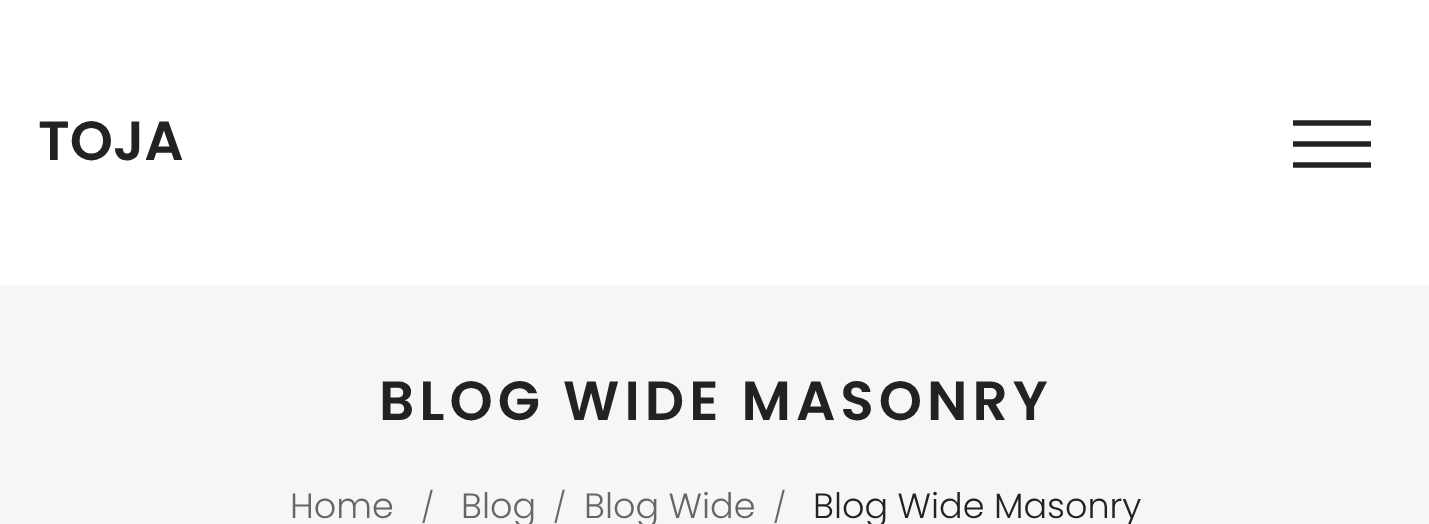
(async () => {
  const canvas = document.querySelector("canvas");
  canvas.width = 1429;
  canvas.height = 524;
  const ctx = canvas.getContext("2d");
  ctx.miterLimit = 4;
  ctx.fontKerning = "normal";
  let path;

  ctx.fillStyle = "#ffffff";
  ctx.fillRect(0, 0, 1429, 524);
  path = new Path2D("M1293 123H1371");
  ctx.strokeStyle = "#222222";
  ctx.lineWidth = 5.4;
  ctx.stroke(path);
  path = new Path2D("M1293 165H1371");
  ctx.stroke(path);
  path = new Path2D("M1293 144H1371");
  ctx.stroke(path);
  ctx.fillStyle = "#f5f6f7";
  ctx.fillRect(0, 285, 1429, 239);
  ctx.font = "600 55px Poppins";
  ctx.fillStyle = "#222222";
  ctx.fillText("TOJA", 38, 160);
  ctx.letterSpacing = "5px";
  ctx.fillText("BLOG WIDE MASONRY", 379, 420);
  ctx.letterSpacing = "0px";
  ctx.font = "300 35px Poppins";
  ctx.fillStyle = "#666666";
  ctx.fillText("Home", 290, 518);
  ctx.font = "300 30px Poppins";
  ctx.fillText("/", 421, 518);
  ctx.font = "300 35px Poppins";
  ctx.fillText("Blog", 461, 518);
  ctx.font = "300 30px Poppins";
  ctx.fillText("/", 553, 518);
  ctx.font = "300 35px Poppins";
  ctx.fillText("Blog Wide", 584, 518);
  ctx.font = "300 30px Poppins";
  ctx.fillText("/", 773, 518);
  ctx.font = "300 35px Poppins";
  ctx.fillStyle = "#222222";
  ctx.fillText("Blog Wide Masonry", 813, 518);
})();
